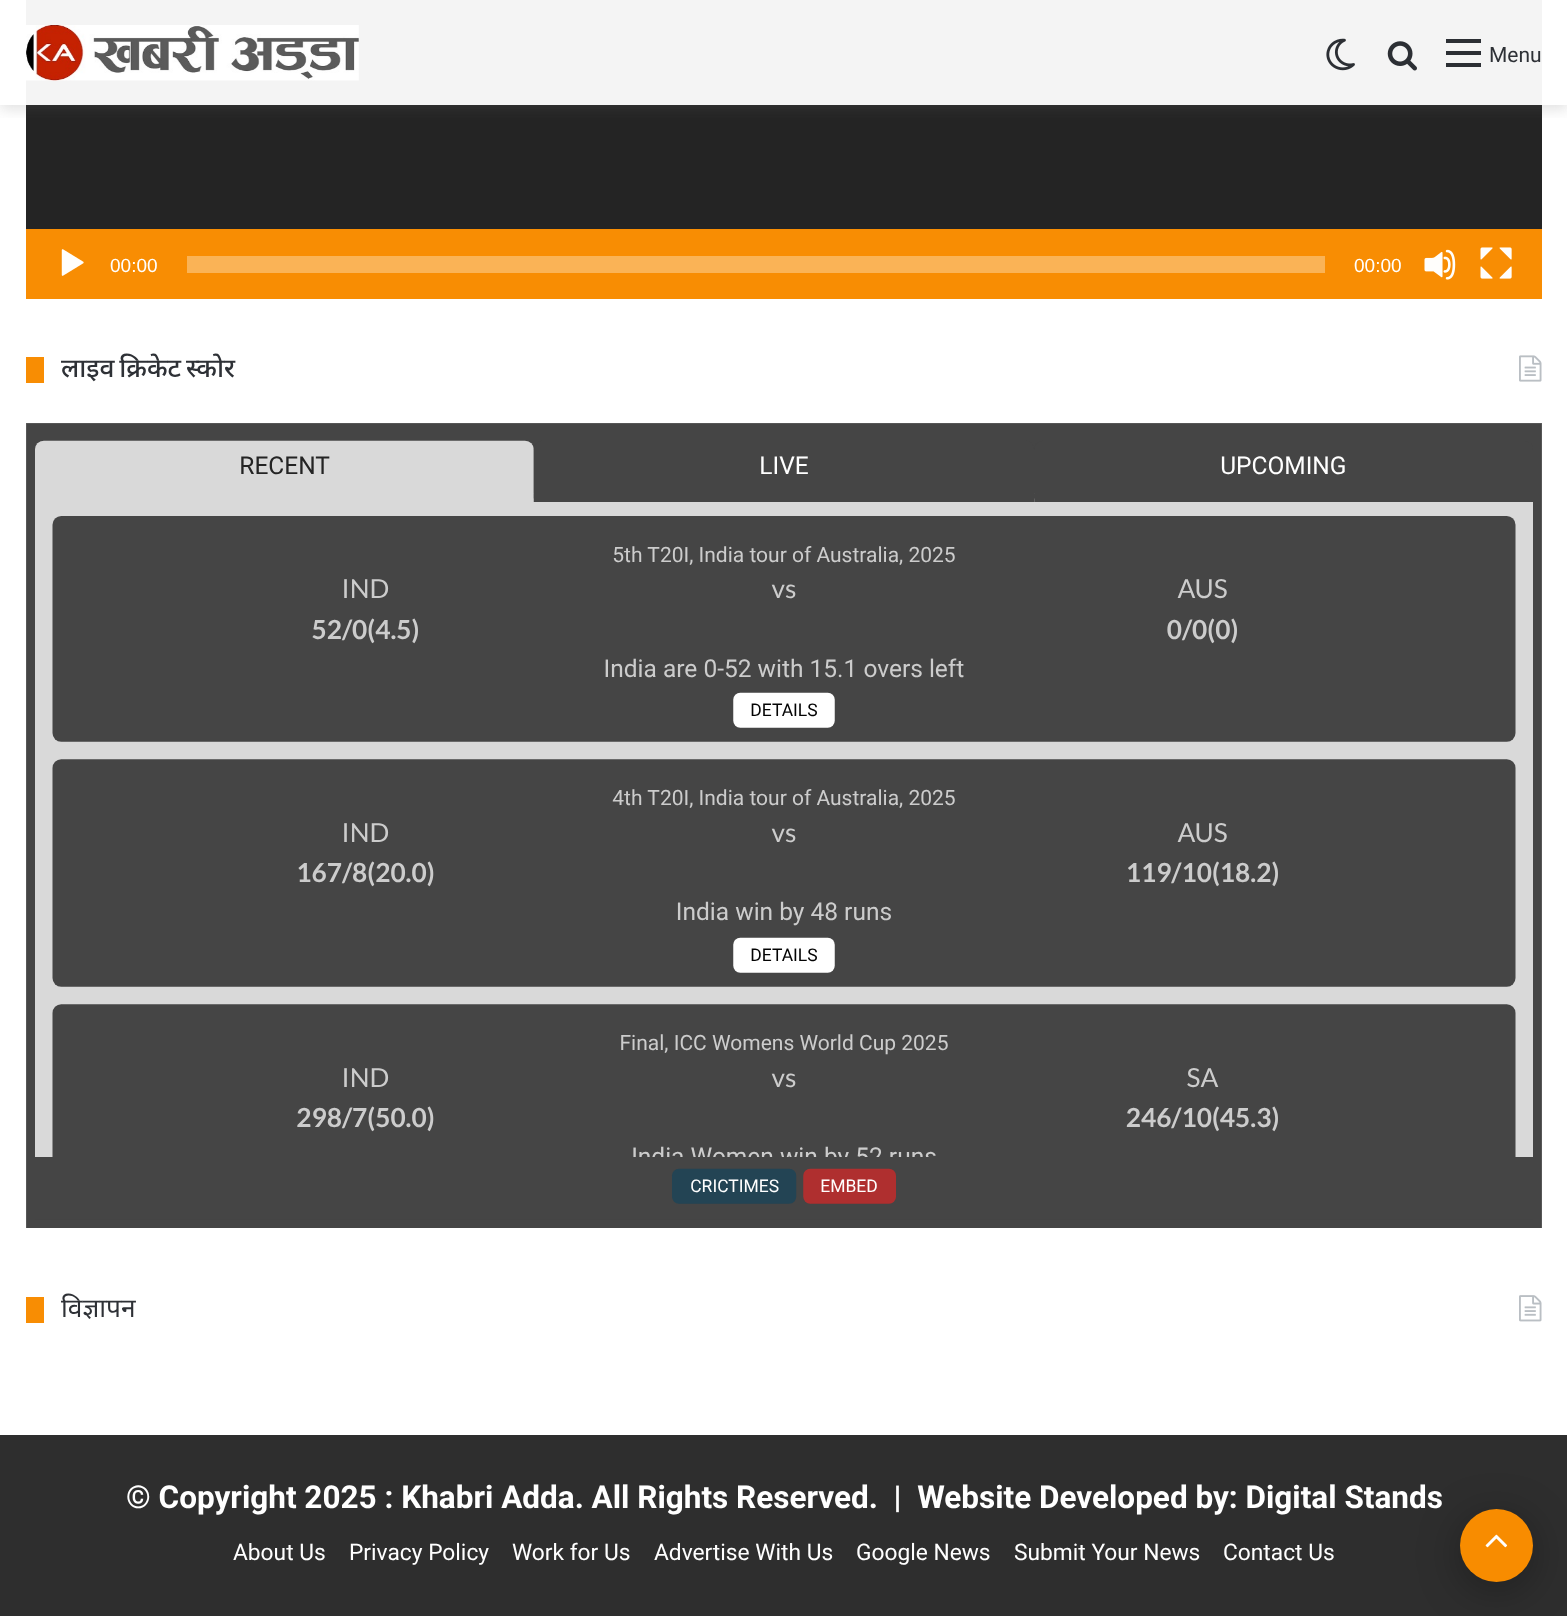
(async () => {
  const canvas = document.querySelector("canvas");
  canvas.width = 1567;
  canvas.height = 1616;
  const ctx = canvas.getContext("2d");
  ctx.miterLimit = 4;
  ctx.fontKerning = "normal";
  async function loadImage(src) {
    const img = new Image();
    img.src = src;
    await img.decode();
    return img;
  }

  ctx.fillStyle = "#ffffff";
  ctx.fillRect(0, 0, 1567, 1616);
  ctx.fillStyle = "#242424";
  ctx.fillRect(26, 105, 1516, 124);
  ctx.fillStyle = "#f4f4f4";
  ctx.fillRect(26, 0, 1516, 105);
  ctx.save();
  ctx.beginPath();
  ctx.rect(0, 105, 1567, 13);
  ctx.clip();
  ctx.fillStyle = "rgba(99, 99, 99, 0.2)";
  ctx.filter = "blur(7px)";
  ctx.beginPath();
  ctx.rect(0, 4, 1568, 105);
  ctx.fill();
  ctx.filter = "none";
  ctx.restore();
  ctx.drawImage(await loadImage("img/1.png"), 26, 25, 333, 56);
  ctx.drawImage(await loadImage("img/2.png"), 1326, 38, 29, 33);
  ctx.drawImage(await loadImage("img/3.png"), 1387, 41, 30, 30);
  for (const [x, y, w, h, color] of [
    [1446, 51, 35, 4, "#2c2f34"],
    [1446, 39, 35, 4, "#2c2f34"],
    [1446, 63, 35, 4, "#2c2f34"],
    [26, 229, 1516, 70, "#f88d03"],
  ]) {
    ctx.fillStyle = color;
    ctx.fillRect(x, y, w, h);
  }
  ctx.drawImage(await loadImage("img/4.png"), 61, 249, 23, 27);
  ctx.fillStyle = "#fab356";
  ctx.fillRect(187, 256, 1138, 17);
  ctx.drawImage(await loadImage("img/5.png"), 1424, 249, 32, 31);
  ctx.drawImage(await loadImage("img/6.png"), 1480, 247, 32, 32);
  ctx.fillStyle = "#f88d03";
  ctx.fillRect(26, 357, 18, 26);
  ctx.drawImage(await loadImage("img/7.png"), 1519, 355, 23, 27);
  ctx.drawImage(await loadImage("img/8.png"), 26, 423, 1516, 805);
  ctx.fillRect(26, 1297, 18, 26);
  ctx.drawImage(await loadImage("img/9.png"), 1519, 1295, 23, 27);
  ctx.fillStyle = "#2e2e2e";
  ctx.fillRect(0, 1435, 1567, 181);
  ctx.fillStyle = "rgba(0, 0, 0, 0.3)";
  ctx.filter = "blur(22px)";
  ctx.beginPath();
  ctx.roundRect(1460, 1517, 73, 74, 36.5);
  ctx.fill();
  ctx.filter = "none";
  ctx.fillStyle = "#f88c00";
  ctx.beginPath();
  ctx.arc(1496.5, 1545.5, 36.5, 0, Math.PI * 2);
  ctx.fill();
  ctx.drawImage(await loadImage("img/10.png"), 1485, 1534, 23, 14);
  ctx.font = "21px Roboto";
  ctx.fillStyle = "#2e3136";
  ctx.fillText("Menu", 1489, 62);
  ctx.font = "19px Liberation Sans";
  ctx.fillStyle = "#ffffff";
  ctx.fillText("00:00", 110, 272);
  ctx.fillText("00:00", 1354, 272);
  ctx.wordSpacing = "-2px";
  ctx.font = "500 26.25px Noto Sans";
  ctx.fillStyle = "#2e3136";
  ctx.fillText("लाइव क्रिकेट स्कोर", 61, 377);
  ctx.wordSpacing = "0px";
  ctx.font = "26.25px Noto Sans";
  ctx.fillText("विज्ञापन", 61, 1317);
  ctx.font = "bold 31.5px Roboto";
  ctx.fillStyle = "#ffffff";
  ctx.fillText("© Copyright 2025 : Khabri Adda. All Rights Reserved.  |  Website Developed by: Digital Stands", 126, 1508);
  ctx.font = "22.75px Roboto";
  for (const [text, x, y] of [
    ["About Us", 233, 1560],
    ["Privacy Policy", 349, 1560],
    ["Work for Us", 512, 1560],
    ["Advertise With Us", 654, 1560],
    ["Google News", 856, 1560],
    ["Submit Your News", 1014, 1560],
    ["Contact Us", 1223, 1560],
  ]) {
    ctx.fillText(text, x, y);
  }
})();
